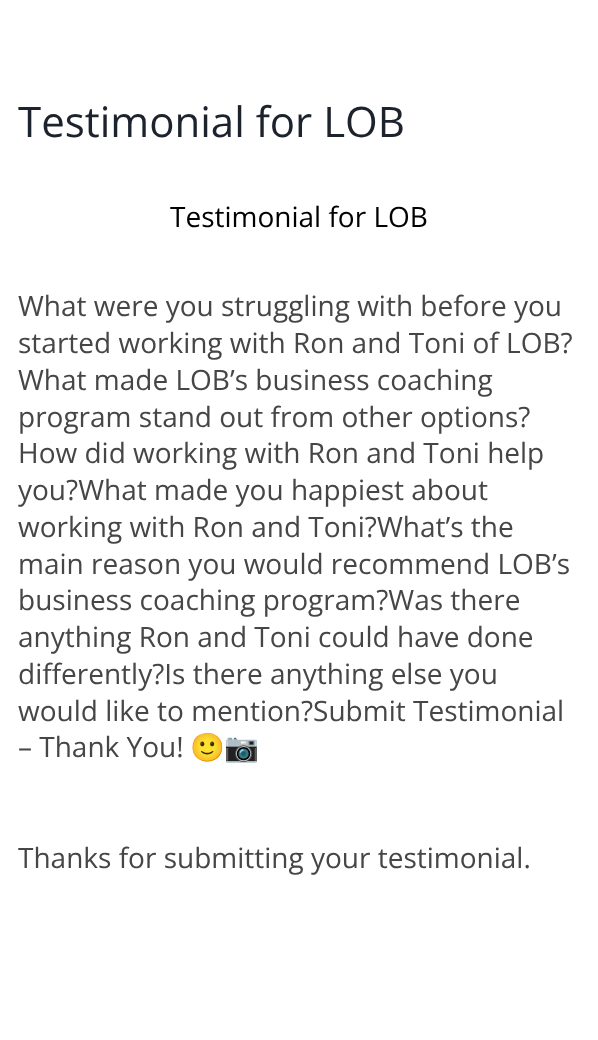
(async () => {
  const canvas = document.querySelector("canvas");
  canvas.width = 598;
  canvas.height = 1040;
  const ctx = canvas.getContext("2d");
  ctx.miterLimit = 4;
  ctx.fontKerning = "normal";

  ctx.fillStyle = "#ffffff";
  ctx.fillRect(0, 0, 598, 1040);
  ctx.font = "42px Open Sans";
  ctx.fillStyle = "#1c232d";
  ctx.fillText("Testimonial for LOB", 18, 137);
  ctx.font = "28px Open Sans";
  ctx.fillStyle = "#000000";
  ctx.fillText("Testimonial for LOB", 170, 227);
  ctx.fillStyle = "#464646";
  for (const [text, x, y] of [
    ["What were you struggling with before you", 18, 316],
    ["started working with Ron and Toni of LOB?", 18, 353],
    ["What made LOB’s business coaching", 18, 390],
    ["program stand out from other options?", 18, 427],
    ["How did working with Ron and Toni help", 18, 463],
    ["you?What made you happiest about", 18, 500],
    ["working with Ron and Toni?What’s the", 18, 537],
    ["main reason you would recommend LOB’s", 18, 574],
    ["business coaching program?Was there", 18, 610],
    ["anything Ron and Toni could have done", 18, 647],
    ["differently?Is there anything else you", 18, 684],
    ["would like to mention?Submit Testimonial", 18, 721],
    ["– Thank You!", 18, 757],
  ]) {
    ctx.fillText(text, x, y);
  }
  ctx.font = "28px Noto Color Emoji";
  ctx.fillText("🙂📷", 190, 757);
  ctx.font = "28px Open Sans";
  ctx.fillText("Thanks for submitting your testimonial.", 18, 868);
})();
